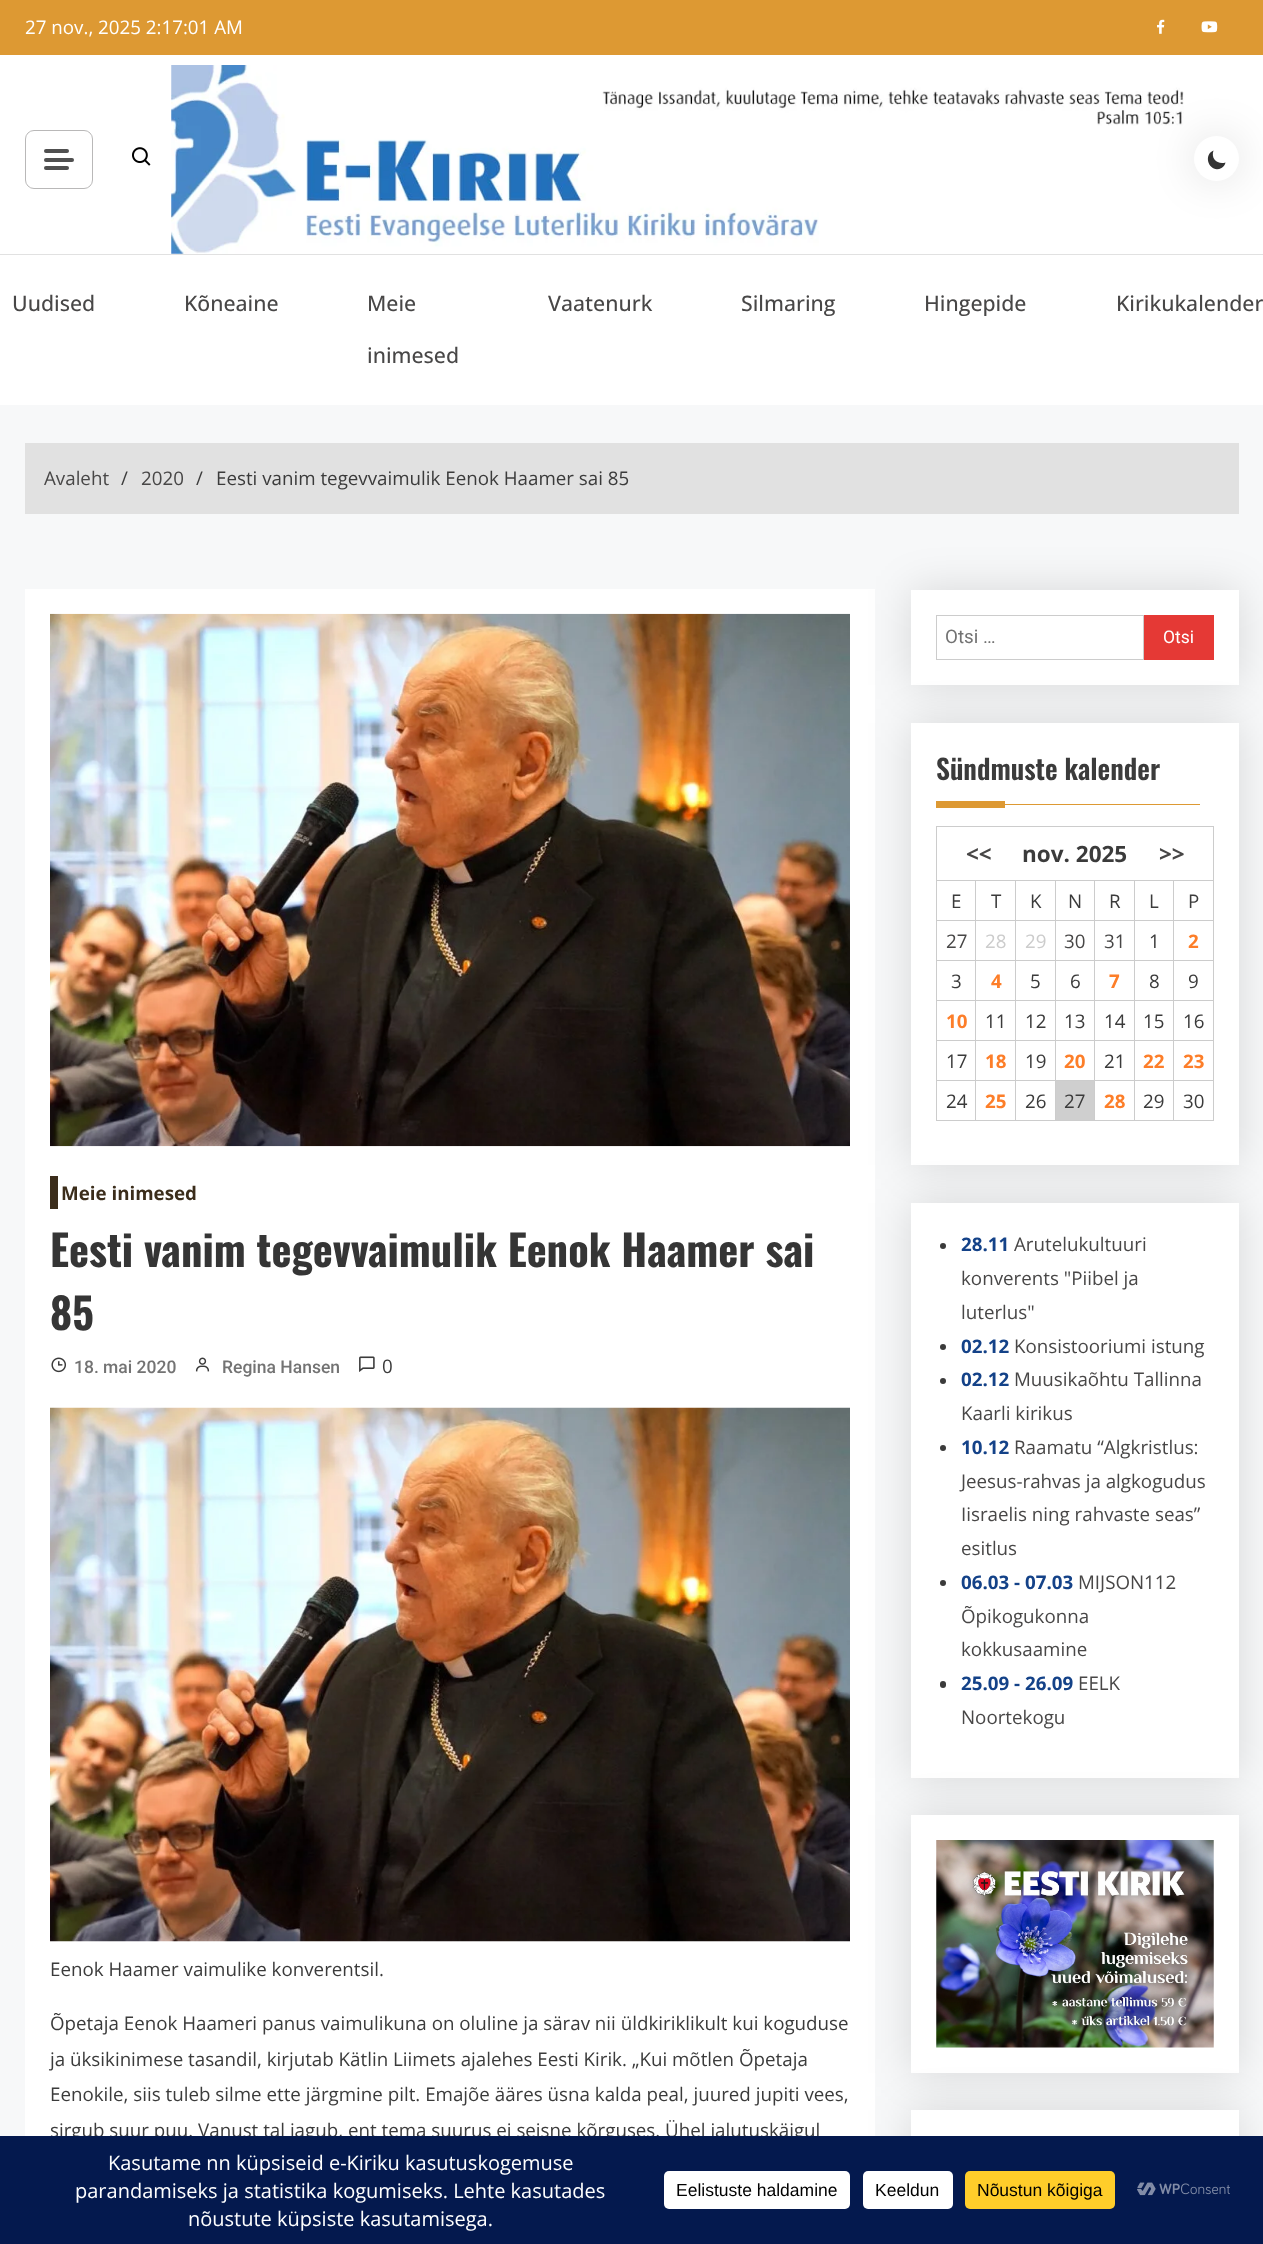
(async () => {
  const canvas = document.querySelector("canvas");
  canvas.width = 1263;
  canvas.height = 2244;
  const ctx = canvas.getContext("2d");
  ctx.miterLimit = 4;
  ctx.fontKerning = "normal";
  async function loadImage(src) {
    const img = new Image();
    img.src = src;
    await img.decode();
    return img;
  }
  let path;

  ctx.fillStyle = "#f7f8f9";
  ctx.fillRect(0, 0, 1263, 2244);
  ctx.fillStyle = "#dd9933";
  ctx.fillRect(0, 0, 1263, 55);
  ctx.drawImage(await loadImage("img/1.png"), 1157, 19, 8, 15);
  ctx.drawImage(await loadImage("img/2.png"), 1201, 21, 17, 12);
  ctx.fillStyle = "#ffffff";
  ctx.fillRect(0, 55, 1263, 350);
  ctx.beginPath();
  ctx.roundRect(25.5, 130.5, 67, 58, 8.5);
  ctx.strokeStyle = "#b9b8b8";
  ctx.stroke();
  ctx.fillStyle = "#505050";
  ctx.beginPath();
  ctx.roundRect(44, 149, 25, 4, 2);
  ctx.fill();
  ctx.beginPath();
  ctx.roundRect(44, 158, 30, 4, 2);
  ctx.fill();
  ctx.beginPath();
  ctx.roundRect(44, 166, 25, 4, 2);
  ctx.fill();
  ctx.drawImage(await loadImage("img/3.png"), 132, 147, 19, 19);
  ctx.drawImage(await loadImage("img/4.png"), 171, 65, 1013, 189);
  ctx.fillStyle = "rgba(0, 0, 0, 0.13)";
  ctx.filter = "blur(22px)";
  ctx.beginPath();
  ctx.roundRect(1194, 136, 45, 45, 22.5);
  ctx.fill();
  ctx.filter = "none";
  ctx.fillStyle = "#ffffff";
  ctx.beginPath();
  ctx.arc(1216.5, 158.5, 22.5, 0, Math.PI * 2);
  ctx.fill();
  ctx.fillStyle = "#333333";
  path = new Path2D("M1225.5 162.5C1218 165 1210.5 159 1213.5 150.5C1202 155.5 1210 174 1221.5 168C1223.5 167 1225 165 1225.5 162.5Z");
  ctx.fill(path);
  for (const [x, y, w, h, color] of [
    [0, 254, 1263, 1, "#e1e1e1"],
    [25, 443, 1214, 71, "#e1e1e1"],
    [25, 589, 850, 1547, "#ffffff"],
  ]) {
    ctx.fillStyle = color;
    ctx.fillRect(x, y, w, h);
  }
  ctx.drawImage(await loadImage("img/5.png"), 50, 613, 800, 534);
  ctx.fillStyle = "#3b2d1b";
  ctx.fillRect(50, 1176, 8, 33);
  ctx.drawImage(await loadImage("img/6.png"), 51, 1357, 15, 16);
  ctx.drawImage(await loadImage("img/7.png"), 195, 1357, 15, 15);
  ctx.drawImage(await loadImage("img/8.png"), 359, 1356, 16, 16);
  ctx.drawImage(await loadImage("img/9.png"), 50, 1407, 800, 535);
  ctx.fillStyle = "rgba(0, 0, 0, 0.13)";
  ctx.filter = "blur(22px)";
  ctx.beginPath();
  ctx.rect(911, 590, 328, 95);
  ctx.fill();
  ctx.filter = "none";
  ctx.fillStyle = "#ffffff";
  ctx.fillRect(911, 590, 328, 95);
  ctx.fillStyle = "rgba(0, 0, 0, 0.13)";
  ctx.filter = "blur(22px)";
  ctx.beginPath();
  ctx.rect(911, 723, 328, 442);
  ctx.fill();
  ctx.filter = "none";
  ctx.strokeStyle = "#cccccc";
  ctx.strokeRect(936.5, 615.5, 207, 44);
  for (const [x, y, w, h, color] of [
    [1144, 615, 70, 45, "#e53935"],
    [911, 723, 328, 442, "#ffffff"],
    [936, 801, 69, 7, "#dd9933"],
    [1005, 804, 195, 1, "#dd9933"],
    [936, 826, 278, 1, "#cccccc"],
    [1173, 880, 41, 1, "#cccccc"],
    [1173, 920, 41, 1, "#cccccc"],
    [1173, 960, 41, 1, "#cccccc"],
    [1173, 1000, 41, 1, "#cccccc"],
    [1173, 1040, 41, 1, "#cccccc"],
    [1173, 1080, 41, 1, "#cccccc"],
    [1213, 1080, 1, 41, "#cccccc"],
    [1213, 1040, 1, 41, "#cccccc"],
    [1213, 1000, 1, 41, "#cccccc"],
    [1213, 960, 1, 41, "#cccccc"],
    [1213, 920, 1, 41, "#cccccc"],
    [1213, 880, 1, 41, "#cccccc"],
    [1213, 826, 1, 55, "#cccccc"],
    [1173, 1120, 41, 1, "#cccccc"],
    [1173, 1080, 1, 41, "#cccccc"],
    [1134, 1080, 40, 1, "#cccccc"],
    [1173, 1040, 1, 41, "#cccccc"],
    [1134, 1040, 40, 1, "#cccccc"],
    [1173, 1000, 1, 41, "#cccccc"],
    [1134, 1000, 40, 1, "#cccccc"],
    [1173, 960, 1, 41, "#cccccc"],
    [1134, 960, 40, 1, "#cccccc"],
    [1173, 920, 1, 41, "#cccccc"],
    [1134, 920, 40, 1, "#cccccc"],
    [1173, 880, 1, 41, "#cccccc"],
    [1134, 880, 40, 1, "#cccccc"],
    [1134, 1120, 40, 1, "#cccccc"],
    [1134, 1080, 1, 41, "#cccccc"],
    [1094, 1080, 41, 1, "#cccccc"],
    [1134, 1040, 1, 41, "#cccccc"],
    [1094, 1040, 41, 1, "#cccccc"],
    [1134, 1000, 1, 41, "#cccccc"],
    [1094, 1000, 41, 1, "#cccccc"],
    [1134, 960, 1, 41, "#cccccc"],
    [1094, 960, 41, 1, "#cccccc"],
    [1134, 920, 1, 41, "#cccccc"],
    [1094, 920, 41, 1, "#cccccc"],
    [1134, 880, 1, 41, "#cccccc"],
    [1094, 880, 41, 1, "#cccccc"],
    [1094, 1120, 41, 1, "#cccccc"],
    [1094, 1080, 1, 41, "#cccccc"],
    [1055, 1080, 40, 1, "#cccccc"],
    [1094, 1040, 1, 41, "#cccccc"],
    [1055, 1040, 40, 1, "#cccccc"],
    [1094, 1000, 1, 41, "#cccccc"],
    [1055, 1000, 40, 1, "#cccccc"],
    [1094, 960, 1, 41, "#cccccc"],
    [1055, 960, 40, 1, "#cccccc"],
    [1094, 920, 1, 41, "#cccccc"],
    [1055, 920, 40, 1, "#cccccc"],
    [1094, 880, 1, 41, "#cccccc"],
    [1055, 880, 40, 1, "#cccccc"],
    [1055, 1120, 40, 1, "#cccccc"],
    [1055, 1080, 1, 41, "#cccccc"],
    [1015, 1080, 41, 1, "#cccccc"],
    [1055, 1040, 1, 41, "#cccccc"],
    [1015, 1040, 41, 1, "#cccccc"],
    [1055, 1000, 1, 41, "#cccccc"],
    [1015, 1000, 41, 1, "#cccccc"],
    [1055, 960, 1, 41, "#cccccc"],
    [1015, 960, 41, 1, "#cccccc"],
    [1055, 920, 1, 41, "#cccccc"],
    [1015, 920, 41, 1, "#cccccc"],
    [1055, 880, 1, 41, "#cccccc"],
    [1015, 880, 41, 1, "#cccccc"],
    [1015, 1120, 41, 1, "#cccccc"],
    [1015, 1080, 1, 41, "#cccccc"],
    [975, 1080, 41, 1, "#cccccc"],
    [1015, 1040, 1, 41, "#cccccc"],
    [975, 1040, 41, 1, "#cccccc"],
    [1015, 1000, 1, 41, "#cccccc"],
    [975, 1000, 41, 1, "#cccccc"],
    [1015, 960, 1, 41, "#cccccc"],
    [975, 960, 41, 1, "#cccccc"],
    [1015, 920, 1, 41, "#cccccc"],
    [975, 920, 41, 1, "#cccccc"],
    [1015, 880, 1, 41, "#cccccc"],
    [975, 880, 41, 1, "#cccccc"],
    [975, 1120, 41, 1, "#cccccc"],
    [975, 1080, 1, 41, "#cccccc"],
    [936, 1080, 40, 1, "#cccccc"],
    [975, 1040, 1, 41, "#cccccc"],
    [936, 1040, 40, 1, "#cccccc"],
    [975, 1000, 1, 41, "#cccccc"],
    [936, 1000, 40, 1, "#cccccc"],
    [975, 960, 1, 41, "#cccccc"],
    [936, 960, 40, 1, "#cccccc"],
    [975, 920, 1, 41, "#cccccc"],
    [936, 920, 40, 1, "#cccccc"],
    [975, 880, 1, 41, "#cccccc"],
    [936, 880, 40, 1, "#cccccc"],
    [936, 1120, 40, 1, "#cccccc"],
    [936, 1080, 1, 41, "#cccccc"],
    [936, 1040, 1, 41, "#cccccc"],
    [936, 1000, 1, 41, "#cccccc"],
    [936, 960, 1, 41, "#cccccc"],
    [936, 920, 1, 41, "#cccccc"],
    [936, 880, 1, 41, "#cccccc"],
    [936, 826, 1, 55, "#cccccc"],
    [1056, 1081, 38, 39, "#cfcfcf"],
  ]) {
    ctx.fillStyle = color;
    ctx.fillRect(x, y, w, h);
  }
  ctx.fillStyle = "rgba(0, 0, 0, 0.13)";
  ctx.filter = "blur(22px)";
  ctx.beginPath();
  ctx.rect(911, 1203, 328, 575);
  ctx.fill();
  ctx.filter = "none";
  ctx.fillStyle = "#ffffff";
  ctx.fillRect(911, 1203, 328, 575);
  ctx.fillStyle = "#3b3b3b";
  ctx.beginPath();
  ctx.arc(943, 1246, 3, 0, Math.PI * 2);
  ctx.fill();
  ctx.beginPath();
  ctx.arc(943, 1347, 3, 0, Math.PI * 2);
  ctx.fill();
  ctx.beginPath();
  ctx.arc(943, 1381, 3, 0, Math.PI * 2);
  ctx.fill();
  ctx.beginPath();
  ctx.arc(943, 1448, 3, 0, Math.PI * 2);
  ctx.fill();
  ctx.beginPath();
  ctx.arc(943, 1583, 3, 0, Math.PI * 2);
  ctx.fill();
  ctx.beginPath();
  ctx.roundRect(940, 1681, 6, 7, 3);
  ctx.fill();
  ctx.fillStyle = "rgba(0, 0, 0, 0.13)";
  ctx.filter = "blur(22px)";
  ctx.beginPath();
  ctx.rect(911, 1815, 328, 258);
  ctx.fill();
  ctx.filter = "none";
  ctx.fillStyle = "#ffffff";
  ctx.fillRect(911, 1815, 328, 258);
  ctx.fillStyle = "rgba(0, 0, 0, 0.13)";
  ctx.filter = "blur(22px)";
  ctx.beginPath();
  ctx.rect(911, 2110, 328, 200);
  ctx.fill();
  ctx.filter = "none";
  ctx.drawImage(await loadImage("img/10.png"), 936, 1840, 278, 208);
  ctx.fillStyle = "#ffffff";
  ctx.fillRect(911, 2110, 328, 26);
  ctx.font = "18.75px Open Sans";
  ctx.fillText("27 nov., 2025 2:17:01 AM", 25, 34);
  ctx.font = "500 21.25px Open Sans";
  ctx.fillStyle = "#484747";
  for (const [text, x, y] of [
    ["Uudised", 12, 311],
    ["Kõneaine", 184, 311],
    ["Meie", 367, 311],
    ["inimesed", 367, 363],
    ["Vaatenurk", 548, 311],
    ["Silmaring", 741, 311],
    ["Hingepide", 924, 311],
    ["Kirikukalender", 1116, 311],
  ]) {
    ctx.fillText(text, x, y);
  }
  ctx.font = "18.75px Open Sans";
  ctx.fillText("Avaleht", 44, 485);
  ctx.fillStyle = "#3b3b3b";
  ctx.fillText("/", 121, 485);
  ctx.fillStyle = "#484747";
  ctx.fillText("2020", 141, 485);
  ctx.fillStyle = "#3b3b3b";
  ctx.fillText("/", 196, 485);
  ctx.fillText("Eesti vanim tegevvaimulik Eenok Haamer sai 85", 216, 485);
  ctx.font = "bold 18.75px Open Sans";
  ctx.fillStyle = "#3b2d1b";
  ctx.fillText("Meie inimesed", 61, 1200);
  ctx.font = "bold 42.5px Oswald";
  ctx.fillStyle = "#353535";
  ctx.fillText("Eesti vanim tegevvaimulik Eenok Haamer sai", 50, 1267);
  ctx.fillText("85", 50, 1330);
  ctx.font = "500 17.5px Roboto";
  ctx.fillStyle = "#737373";
  ctx.fillText("18. mai 2020", 74, 1373);
  ctx.fillText("Regina Hansen", 222, 1373);
  ctx.font = "18.75px Open Sans";
  ctx.fillStyle = "#3b3b3b";
  for (const [text, x, y] of [
    ["0", 382, 1373],
    ["Eenok Haamer vaimulike konverentsil.", 50, 1976],
    ["Õpetaja Eenok Haameri panus vaimulikuna on oluline ja särav nii üldkiriklikult kui koguduse", 50, 2030],
    ["ja üksikinimese tasandil, kirjutab Kätlin Liimets ajalehes Eesti Kirik. „Kui mõtlen Õpetaja", 50, 2066],
    ["Eenokile, siis tuleb silme ette järgmine pilt. Emajõe ääres üsna kalda peal, juured jupiti vees,", 50, 2101],
    ["sirgub suur puu. Vanust tal jagub, ent tema suurus ei seisne kõrguses. Ühel jalutuskäigul", 50, 2137],
  ]) {
    ctx.fillText(text, x, y);
  }
  ctx.font = "18.75px Roboto";
  ctx.fillStyle = "#737373";
  ctx.fillText("Otsi …", 945, 643);
  ctx.font = "17.5px Roboto";
  ctx.fillStyle = "#ffffff";
  ctx.fillText("Otsi", 1163, 643);
  ctx.font = "600 27.5px Oswald";
  ctx.fillStyle = "#3b3b3b";
  ctx.fillText("Sündmuste kalender", 936, 780);
  ctx.font = "bold 22.5px Open Sans";
  ctx.fillStyle = "#484747";
  ctx.fillText("<<", 966, 862);
  ctx.fillStyle = "#3b3b3b";
  ctx.fillText("nov. 2025", 1022, 862);
  ctx.fillStyle = "#484747";
  ctx.fillText(">>", 1159, 862);
  ctx.font = "18.75px Open Sans";
  ctx.fillStyle = "#3b3b3b";
  for (const [text, x, y] of [
    ["E", 951, 908],
    ["T", 991, 908],
    ["K", 1030, 908],
    ["N", 1068, 908],
    ["R", 1109, 908],
    ["L", 1149, 908],
    ["P", 1188, 908],
  ]) {
    ctx.fillText(text, x, y);
  }
  ctx.fillStyle = "#484747";
  ctx.fillText("27", 946, 948);
  ctx.fillStyle = "#cccccc";
  ctx.fillText("28", 985, 948);
  ctx.fillText("29", 1025, 948);
  ctx.fillStyle = "#484747";
  ctx.fillText("30", 1064, 948);
  ctx.fillText("31", 1104, 948);
  ctx.fillStyle = "#3b3b3b";
  ctx.fillText("1", 1149, 948);
  ctx.font = "bold 18.75px Open Sans";
  ctx.fillStyle = "#fd7e29";
  ctx.fillText("2", 1188, 948);
  ctx.font = "18.75px Open Sans";
  ctx.fillStyle = "#3b3b3b";
  ctx.fillText("3", 951, 988);
  ctx.font = "bold 18.75px Open Sans";
  ctx.fillStyle = "#fd7e29";
  ctx.fillText("4", 991, 988);
  ctx.font = "18.75px Open Sans";
  ctx.fillStyle = "#3b3b3b";
  ctx.fillText("5", 1030, 988);
  ctx.fillText("6", 1070, 988);
  ctx.font = "bold 18.75px Open Sans";
  ctx.fillStyle = "#fd7e29";
  ctx.fillText("7", 1109, 988);
  ctx.font = "18.75px Open Sans";
  ctx.fillStyle = "#3b3b3b";
  ctx.fillText("8", 1149, 988);
  ctx.fillText("9", 1188, 988);
  ctx.font = "bold 18.75px Open Sans";
  ctx.fillStyle = "#fd7e29";
  ctx.fillText("10", 946, 1028);
  ctx.font = "18.75px Open Sans";
  ctx.fillStyle = "#3b3b3b";
  for (const [text, x, y] of [
    ["11", 985, 1028],
    ["12", 1025, 1028],
    ["13", 1064, 1028],
    ["14", 1104, 1028],
    ["15", 1143, 1028],
    ["16", 1183, 1028],
    ["17", 946, 1068],
  ]) {
    ctx.fillText(text, x, y);
  }
  ctx.font = "bold 18.75px Open Sans";
  ctx.fillStyle = "#fd7e29";
  ctx.fillText("18", 985, 1068);
  ctx.font = "18.75px Open Sans";
  ctx.fillStyle = "#3b3b3b";
  ctx.fillText("19", 1025, 1068);
  ctx.font = "bold 18.75px Open Sans";
  ctx.fillStyle = "#fd7e29";
  ctx.fillText("20", 1064, 1068);
  ctx.font = "18.75px Open Sans";
  ctx.fillStyle = "#3b3b3b";
  ctx.fillText("21", 1104, 1068);
  ctx.font = "bold 18.75px Open Sans";
  ctx.fillStyle = "#fd7e29";
  ctx.fillText("22", 1143, 1068);
  ctx.fillText("23", 1183, 1068);
  ctx.font = "18.75px Open Sans";
  ctx.fillStyle = "#3b3b3b";
  ctx.fillText("24", 946, 1108);
  ctx.font = "bold 18.75px Open Sans";
  ctx.fillStyle = "#fd7e29";
  ctx.fillText("25", 985, 1108);
  ctx.font = "18.75px Open Sans";
  ctx.fillStyle = "#3b3b3b";
  ctx.fillText("26", 1025, 1108);
  ctx.fillText("27", 1064, 1108);
  ctx.font = "bold 18.75px Open Sans";
  ctx.fillStyle = "#fd7e29";
  ctx.fillText("28", 1104, 1108);
  ctx.font = "18.75px Open Sans";
  ctx.fillStyle = "#3b3b3b";
  ctx.fillText("29", 1143, 1108);
  ctx.fillText("30", 1183, 1108);
  ctx.font = "bold 18.75px Open Sans";
  ctx.fillStyle = "#144288";
  ctx.fillText("28.11", 961, 1251);
  ctx.font = "18.75px Open Sans";
  ctx.fillStyle = "#484747";
  for (const [text, x, y] of [
    ["Arutelukultuuri", 1014, 1251],
    ["konverents \"Piibel ja", 961, 1285],
    ["luterlus\"", 961, 1319],
  ]) {
    ctx.fillText(text, x, y);
  }
  ctx.font = "bold 18.75px Open Sans";
  ctx.fillStyle = "#144288";
  ctx.fillText("02.12", 961, 1353);
  ctx.font = "18.75px Open Sans";
  ctx.fillStyle = "#484747";
  ctx.fillText("Konsistooriumi istung", 1014, 1353);
  ctx.font = "bold 18.75px Open Sans";
  ctx.fillStyle = "#144288";
  ctx.fillText("02.12", 961, 1386);
  ctx.font = "18.75px Open Sans";
  ctx.fillStyle = "#484747";
  ctx.fillText("Muusikaõhtu Tallinna", 1014, 1386);
  ctx.fillText("Kaarli kirikus", 961, 1420);
  ctx.font = "bold 18.75px Open Sans";
  ctx.fillStyle = "#144288";
  ctx.fillText("10.12", 961, 1454);
  ctx.font = "18.75px Open Sans";
  ctx.fillStyle = "#484747";
  for (const [text, x, y] of [
    ["Raamatu “Algkristlus:", 1014, 1454],
    ["Jeesus-rahvas ja algkogudus", 961, 1488],
    ["Iisraelis ning rahvaste seas”", 961, 1521],
    ["esitlus", 961, 1555],
  ]) {
    ctx.fillText(text, x, y);
  }
  ctx.font = "bold 18.75px Open Sans";
  ctx.fillStyle = "#144288";
  ctx.fillText("06.03 - 07.03", 961, 1589);
  ctx.font = "18.75px Open Sans";
  ctx.fillStyle = "#484747";
  for (const [text, x, y] of [
    ["MIJSON112", 1078, 1589],
    ["Õpikogukonna", 961, 1623],
    ["kokkusaamine", 961, 1656],
  ]) {
    ctx.fillText(text, x, y);
  }
  ctx.font = "bold 18.75px Open Sans";
  ctx.fillStyle = "#144288";
  ctx.fillText("25.09 - 26.09", 961, 1690);
  ctx.font = "18.75px Open Sans";
  ctx.fillStyle = "#484747";
  ctx.fillText("EELK", 1078, 1690);
  ctx.fillText("Noortekogu", 961, 1724);
  ctx.fillStyle = "#04194e";
  ctx.fillRect(0, 2136, 1263, 108);
  ctx.font = "20px Open Sans";
  ctx.fillStyle = "#ffffff";
  for (const [text, x, y] of [
    ["Kasutame nn küpsiseid e-Kiriku kasutuskogemuse", 108, 2170],
    ["parandamiseks ja statistika kogumiseks. Lehte kasutades", 75, 2198],
    ["nõustute küpsiste kasutamisega.", 188, 2226],
  ]) {
    ctx.fillText(text, x, y);
  }
  ctx.beginPath();
  ctx.roundRect(664, 2171, 186, 38, 5);
  ctx.fill();
  ctx.font = "17.5px Liberation Sans";
  ctx.fillStyle = "#000000";
  ctx.fillText("Eelistuste haldamine", 676, 2196);
  ctx.fillStyle = "#ffffff";
  ctx.beginPath();
  ctx.roundRect(863, 2171, 90, 38, 5);
  ctx.fill();
  ctx.fillStyle = "#000000";
  ctx.fillText("Keeldun", 875, 2196);
  ctx.fillStyle = "#ffcd2a";
  ctx.beginPath();
  ctx.roundRect(965, 2171, 150, 38, 5);
  ctx.fill();
  ctx.fillStyle = "#000000";
  ctx.fillText("Nõustun kõigiga", 977, 2196);
  ctx.drawImage(await loadImage("img/11.png"), 1137, 2182, 93, 14);
})();
